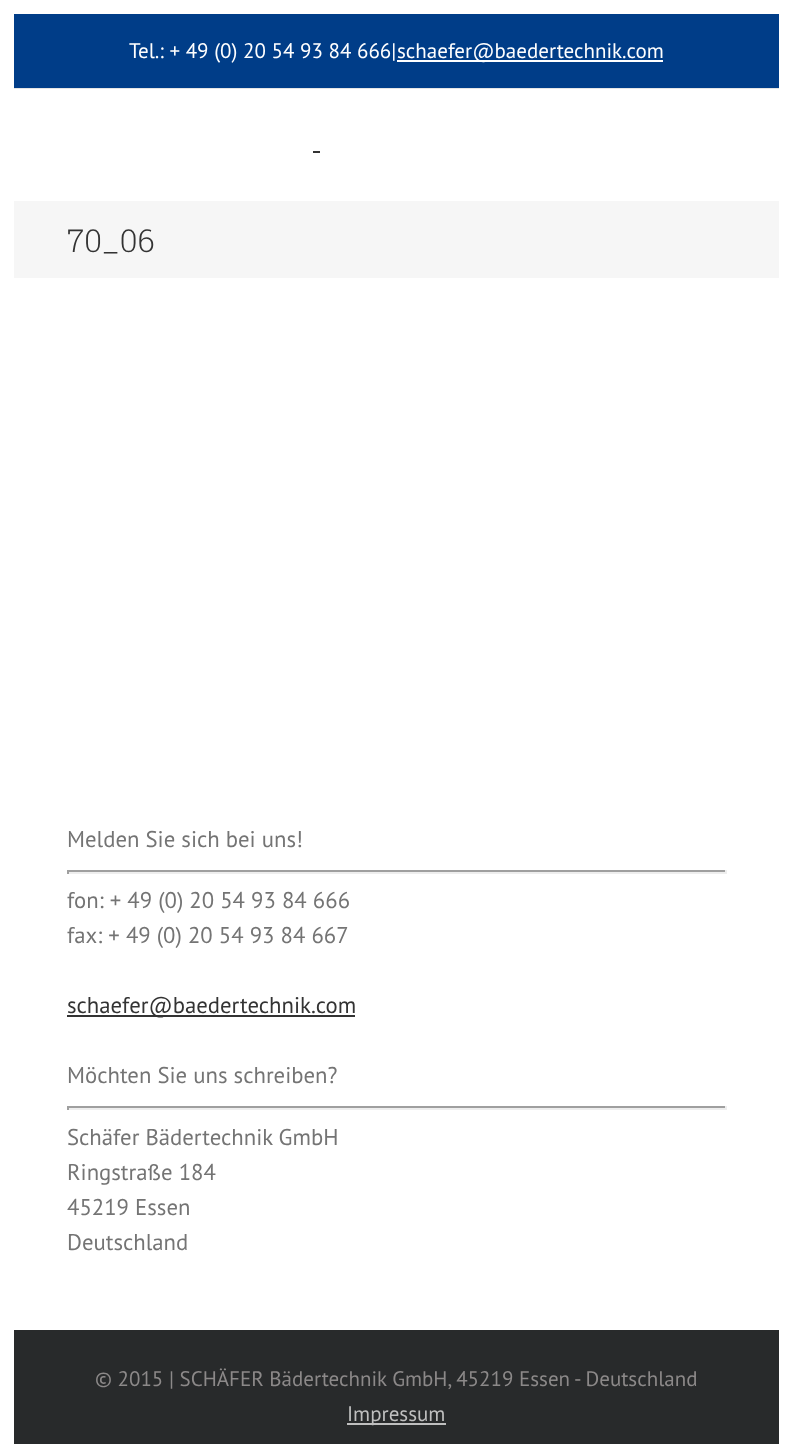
(async () => {
  const canvas = document.querySelector("canvas");
  canvas.width = 792;
  canvas.height = 1444;
  const ctx = canvas.getContext("2d");
  ctx.miterLimit = 4;
  ctx.fontKerning = "normal";

  ctx.fillStyle = "#ffffff";
  ctx.fillRect(0, 0, 792, 1444);
  for (const [x, y, w, h, color] of [
    [14, 14, 765, 74, "#003d88"],
    [14, 88, 765, 1, "#e5e5e5"],
    [397, 60, 266, 2, "#ffffff"],
    [313, 151, 7, 2, "#333333"],
    [14, 201, 765, 77, "#f6f6f6"],
    [67, 870, 659, 2, "#9f9f9f"],
    [725, 870, 2, 4, "#eeeeee"],
    [67, 872, 659, 2, "#eeeeee"],
    [67, 870, 2, 4, "#9f9f9f"],
    [67, 1015, 288, 2, "#333333"],
    [67, 1106, 659, 2, "#9f9f9f"],
    [725, 1106, 2, 4, "#eeeeee"],
    [67, 1108, 659, 2, "#eeeeee"],
    [67, 1106, 2, 4, "#9f9f9f"],
    [14, 1330, 765, 114, "#282a2b"],
    [347, 1423, 99, 2, "#bfbfbf"],
  ]) {
    ctx.fillStyle = color;
    ctx.fillRect(x, y, w, h);
  }
  ctx.font = "21px PT Sans";
  ctx.fillStyle = "#ffffff";
  ctx.fillText("Tel.: + 49 (0) 20 54 93 84 666|", 129, 58);
  ctx.fillText("schaefer@baedertechnik.com", 397, 58);
  ctx.font = "300 31.5px Roboto Slab";
  ctx.fillStyle = "#333333";
  ctx.fillText("70_06", 67, 252);
  ctx.font = "22.75px PT Sans";
  ctx.fillStyle = "#747474";
  for (const [text, x, y] of [
    ["Melden Sie sich bei uns!", 67, 847],
    ["fon: + 49 (0) 20 54 93 84 666", 67, 908],
    ["fax: + 49 (0) 20 54 93 84 667", 67, 943],
  ]) {
    ctx.fillText(text, x, y);
  }
  ctx.fillStyle = "#333333";
  ctx.fillText("schaefer@baedertechnik.com", 67, 1013);
  ctx.fillStyle = "#747474";
  for (const [text, x, y] of [
    ["Möchten Sie uns schreiben?", 67, 1083],
    ["Schäfer Bädertechnik GmbH", 67, 1145],
    ["Ringstraße 184", 67, 1180],
    ["45219 Essen", 67, 1215],
    ["Deutschland", 67, 1250],
  ]) {
    ctx.fillText(text, x, y);
  }
  ctx.font = "21px PT Sans";
  ctx.fillStyle = "#8c8989";
  ctx.fillText("© 2015 | SCHÄFER Bädertechnik GmbH, 45219 Essen - Deutschland", 95, 1386);
  ctx.fillStyle = "#bfbfbf";
  ctx.fillText("Impressum", 347, 1421);
})();
